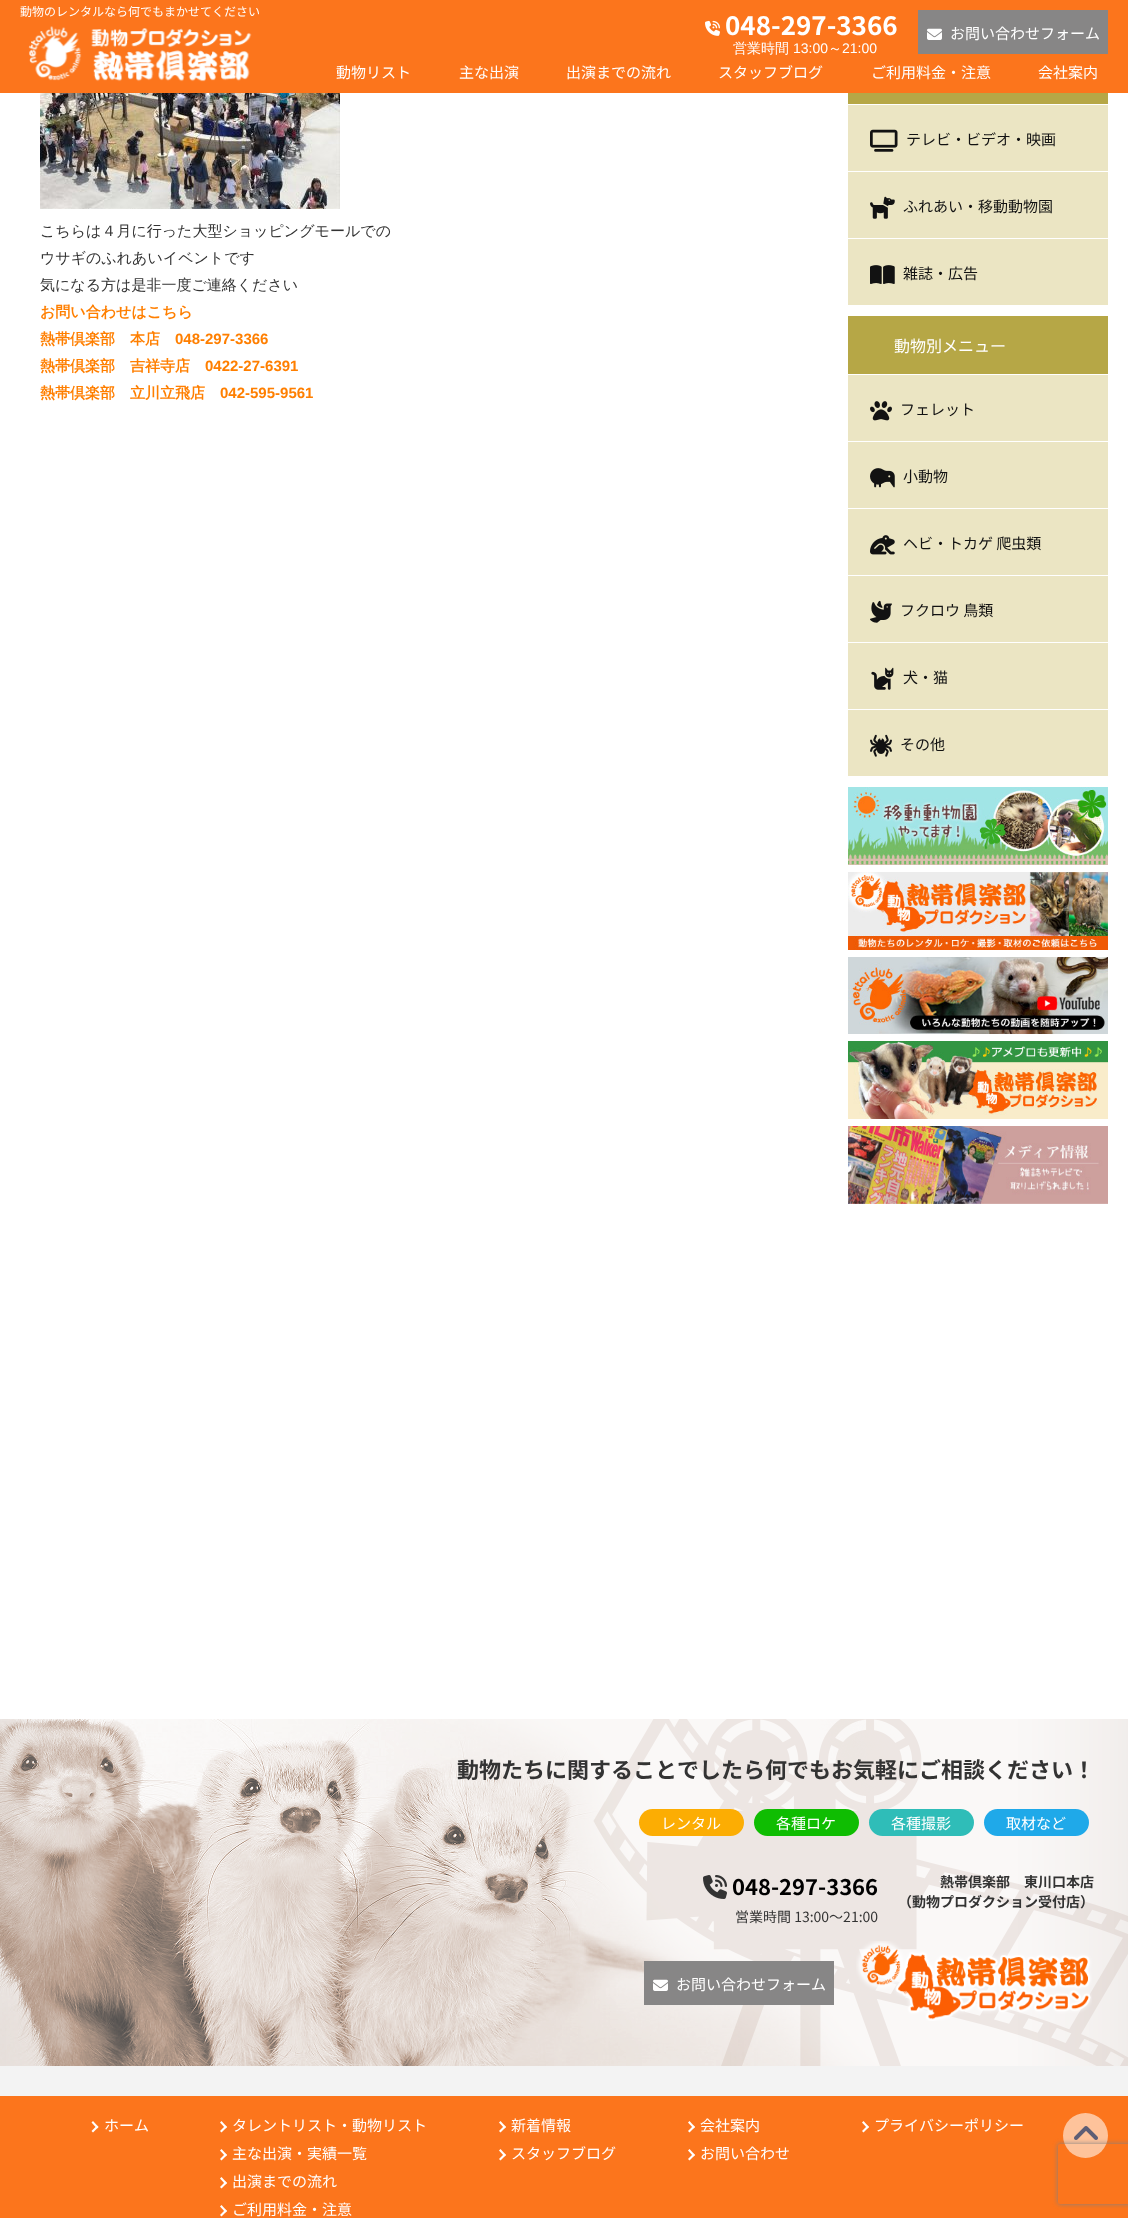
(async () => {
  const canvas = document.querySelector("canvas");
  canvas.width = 1128;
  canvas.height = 2218;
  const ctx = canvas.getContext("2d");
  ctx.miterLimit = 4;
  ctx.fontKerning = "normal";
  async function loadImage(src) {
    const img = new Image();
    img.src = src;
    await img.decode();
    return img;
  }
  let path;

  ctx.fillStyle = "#ffffff";
  ctx.fillRect(0, 0, 1128, 2218);
  ctx.fillStyle = "#fc751c";
  ctx.fillRect(0, 0, 1128, 93);
  ctx.drawImage(await loadImage("img/1.png"), 28, 26, 224, 56);
  ctx.drawImage(await loadImage("img/2.png"), 705, 20, 15, 16);
  ctx.fillStyle = "#878686";
  ctx.fillRect(918, 10, 190, 44);
  ctx.drawImage(await loadImage("img/3.png"), 927, 28, 15, 12);
  ctx.drawImage(await loadImage("img/4.png"), 40, 93, 300, 116);
  ctx.fillStyle = "#b6a746";
  ctx.fillRect(848, 93, 260, 11);
  ctx.fillStyle = "#ebe5c3";
  ctx.fillRect(848, 105, 260, 66);
  ctx.drawImage(await loadImage("img/5.png"), 870, 129, 28, 23);
  ctx.fillRect(848, 172, 260, 66);
  ctx.drawImage(await loadImage("img/6.png"), 870, 196, 25, 23);
  ctx.fillRect(848, 239, 260, 66);
  ctx.drawImage(await loadImage("img/7.png"), 870, 265, 25, 19);
  ctx.fillStyle = "#b6a746";
  ctx.fillRect(848, 316, 260, 58);
  ctx.fillStyle = "#ebe5c3";
  ctx.fillRect(848, 375, 260, 66);
  ctx.drawImage(await loadImage("img/8.png"), 870, 401, 22, 20);
  ctx.fillRect(848, 442, 260, 66);
  ctx.drawImage(await loadImage("img/9.png"), 870, 468, 25, 20);
  ctx.fillRect(848, 509, 260, 66);
  ctx.drawImage(await loadImage("img/10.png"), 870, 535, 25, 20);
  ctx.fillRect(848, 576, 260, 66);
  ctx.drawImage(await loadImage("img/11.png"), 870, 600, 22, 23);
  ctx.fillRect(848, 643, 260, 66);
  ctx.drawImage(await loadImage("img/12.png"), 871, 667, 23, 23);
  ctx.fillRect(848, 710, 260, 66);
  ctx.drawImage(await loadImage("img/13.png"), 870, 734, 22, 23);
  ctx.drawImage(await loadImage("img/14.png"), 848, 787, 260, 78);
  ctx.drawImage(await loadImage("img/15.png"), 848, 872, 260, 78);
  ctx.drawImage(await loadImage("img/16.png"), 848, 957, 260, 77);
  ctx.drawImage(await loadImage("img/17.png"), 848, 1041, 260, 78);
  ctx.drawImage(await loadImage("img/18.png"), 848, 1126, 260, 78);
  ctx.fillStyle = "#f3f3f3";
  ctx.fillRect(0, 2066, 1128, 30);
  ctx.drawImage(await loadImage("img/19.png"), 0, 1719, 1128, 347);
  ctx.fillStyle = "#fcad03";
  ctx.beginPath();
  ctx.roundRect(639, 1809, 105, 27, 13.5);
  ctx.fill();
  ctx.fillStyle = "#0fbd02";
  ctx.beginPath();
  ctx.roundRect(754, 1809, 105, 27, 13.5);
  ctx.fill();
  ctx.fillStyle = "#2fbdb8";
  ctx.beginPath();
  ctx.roundRect(869, 1809, 105, 27, 13.5);
  ctx.fill();
  ctx.fillStyle = "#1fa9e9";
  ctx.beginPath();
  ctx.roundRect(984, 1809, 105, 27, 13.5);
  ctx.fill();
  ctx.drawImage(await loadImage("img/20.png"), 703, 1875, 24, 24);
  ctx.fillStyle = "#878686";
  ctx.fillRect(644, 1961, 190, 44);
  ctx.drawImage(await loadImage("img/3.png"), 653, 1979, 15, 12);
  ctx.drawImage(await loadImage("img/21.png"), 856, 1941, 236, 80);
  ctx.fillStyle = "#fc751c";
  ctx.fillRect(0, 2096, 1128, 122);
  ctx.fillStyle = "#ffffff";
  path = new Path2D("M91.5 2122.5L93 2121L98.5 2127L97 2128.5Z");
  ctx.fill(path);
  path = new Path2D("M91.5 2131L97 2125.5L98.5 2127L93 2132.5Z");
  ctx.fill(path);
  path = new Path2D("M220 2122.5L221.5 2121L227 2127L225.5 2128.5Z");
  ctx.fill(path);
  path = new Path2D("M220 2131L225.5 2125.5L227 2127L221.5 2132.5Z");
  ctx.fill(path);
  path = new Path2D("M220 2150.5L221.5 2149L227 2155L225.5 2156.5Z");
  ctx.fill(path);
  path = new Path2D("M220 2159L225.5 2153.5L227 2155L221.5 2160.5Z");
  ctx.fill(path);
  path = new Path2D("M220 2178.5L221.5 2177L227 2183L225.5 2184.5Z");
  ctx.fill(path);
  path = new Path2D("M220 2187L225.5 2181.5L227 2183L221.5 2188.5Z");
  ctx.fill(path);
  path = new Path2D("M220 2206.5L221.5 2205L227 2211L225.5 2212.5Z");
  ctx.fill(path);
  path = new Path2D("M220 2215L225.5 2209.5L227 2211L221.5 2216.5Z");
  ctx.fill(path);
  path = new Path2D("M499 2122.5L500.5 2121L506 2127L504.5 2128.5Z");
  ctx.fill(path);
  path = new Path2D("M499 2131L504.5 2125.5L506 2127L500.5 2132.5Z");
  ctx.fill(path);
  path = new Path2D("M499 2150.5L500.5 2149L506 2155L504.5 2156.5Z");
  ctx.fill(path);
  path = new Path2D("M499 2159L504.5 2153.5L506 2155L500.5 2160.5Z");
  ctx.fill(path);
  path = new Path2D("M688 2122.5L689.5 2121L695 2127L693.5 2128.5Z");
  ctx.fill(path);
  path = new Path2D("M688 2131L693.5 2125.5L695 2127L689.5 2132.5Z");
  ctx.fill(path);
  path = new Path2D("M688 2150.5L689.5 2149L695 2155L693.5 2156.5Z");
  ctx.fill(path);
  path = new Path2D("M688 2159L693.5 2153.5L695 2155L689.5 2160.5Z");
  ctx.fill(path);
  path = new Path2D("M862 2122.5L863.5 2121L869 2127L867.5 2128.5Z");
  ctx.fill(path);
  path = new Path2D("M862 2131L867.5 2125.5L869 2127L863.5 2132.5Z");
  ctx.fill(path);
  ctx.fillStyle = "#fec39b";
  ctx.beginPath();
  ctx.arc(1085.5, 2135.5, 22.5, 0, Math.PI * 2);
  ctx.fill();
  ctx.drawImage(await loadImage("img/22.png"), 1074, 2126, 24, 14);
  ctx.save();
  path = new Path2D("M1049 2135H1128V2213H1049ZM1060 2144H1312C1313 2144 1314 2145 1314 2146V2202C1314 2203 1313 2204 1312 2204H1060C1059 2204 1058 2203 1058 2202V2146C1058 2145 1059 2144 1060 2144Z");
  ctx.clip(path, "evenodd");
  ctx.fillStyle = "#808080";
  ctx.filter = "blur(2.5px)";
  ctx.beginPath();
  ctx.roundRect(1058, 2144, 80, 60, 2);
  ctx.fill();
  ctx.filter = "none";
  ctx.restore();
  ctx.font = "12px Noto Sans JP";
  ctx.fillStyle = "#ffffff";
  ctx.fillText("動物のレンタルなら何でもまかせてください", 20, 16);
  ctx.font = "bold 26px Noto Sans JP";
  ctx.fillText("048-297-3366", 725, 35);
  ctx.font = "500 14px WenQuanYi Zen Hei";
  ctx.fillText("営業時間", 733, 53);
  ctx.font = "14px Liberation Sans";
  ctx.fillText("13:00", 793, 53);
  ctx.font = "500 14px WenQuanYi Zen Hei";
  ctx.fillText("～", 828, 53);
  ctx.font = "14px Liberation Sans";
  ctx.fillText("21:00", 842, 53);
  ctx.font = "15px Noto Sans JP";
  for (const [text, x, y] of [
    ["お問い合わせフォーム", 950, 39],
    ["動物リスト", 336, 78],
    ["主な出演", 459, 78],
    ["出演までの流れ", 566, 78],
    ["スタッフブログ", 718, 78],
    ["ご利用料金・注意", 871, 78],
    ["会社案内", 1038, 78],
  ]) {
    ctx.fillText(text, x, y);
  }
  ctx.font = "500 15px WenQuanYi Zen Hei";
  ctx.fillStyle = "#333333";
  for (const [text, x, y] of [
    ["こちらは４月に行った大型ショッピングモールでの", 40, 236],
    ["ウサギのふれあいイベントです", 40, 263],
    ["気になる方は是非一度ご連絡ください", 40, 290],
  ]) {
    ctx.fillText(text, x, y);
  }
  ctx.font = "bold 15px WenQuanYi Zen Hei";
  ctx.fillStyle = "#ff7f00";
  ctx.fillText("お問い合わせはこちら", 40, 317);
  ctx.fillText("熱帯倶楽部　本店", 40, 344);
  ctx.font = "bold 15px Liberation Sans";
  ctx.fillText("048-297-3366", 175, 344);
  ctx.font = "bold 15px WenQuanYi Zen Hei";
  ctx.fillText("熱帯倶楽部　吉祥寺店", 40, 371);
  ctx.font = "bold 15px Liberation Sans";
  ctx.fillText("0422-27-6391", 205, 371);
  ctx.font = "bold 15px WenQuanYi Zen Hei";
  ctx.fillText("熱帯倶楽部　立川立飛店", 40, 398);
  ctx.font = "bold 15px Liberation Sans";
  ctx.fillText("042-595-9561", 220, 398);
  ctx.font = "15px Noto Sans JP";
  ctx.fillStyle = "#121212";
  for (const [text, x, y] of [
    ["テレビ・ビデオ・映画", 906, 145],
    ["ふれあい・移動動物園", 903, 212],
    ["雑誌・広告", 903, 279],
  ]) {
    ctx.fillText(text, x, y);
  }
  ctx.font = "16px Noto Sans JP";
  ctx.fillStyle = "#ffffff";
  ctx.fillText("動物別メニュー", 894, 352);
  ctx.font = "15px Noto Sans JP";
  ctx.fillStyle = "#121212";
  for (const [text, x, y] of [
    ["フェレット", 900, 415],
    ["小動物", 903, 482],
    ["ヘビ・トカゲ 爬虫類", 903, 549],
    ["フクロウ 鳥類", 900, 616],
    ["犬・猫", 903, 683],
    ["その他", 900, 750],
  ]) {
    ctx.fillText(text, x, y);
  }
  ctx.font = "bold 22px Noto Sans JP";
  ctx.fillStyle = "#333333";
  ctx.fillText("動物たちに関することでしたら何でもお気軽にご相談ください！", 457, 1778);
  ctx.font = "15px Noto Sans JP";
  ctx.fillStyle = "#ffffff";
  for (const [text, x, y] of [
    ["レンタル", 661, 1829],
    ["各種ロケ", 776, 1829],
    ["各種撮影", 891, 1829],
    ["取材など", 1006, 1829],
  ]) {
    ctx.fillText(text, x, y);
  }
  ctx.font = "bold 22px Noto Sans JP";
  ctx.fillStyle = "#000000";
  ctx.fillText("048-297-3366", 732, 1895);
  ctx.font = "14px Noto Sans JP";
  ctx.fillStyle = "#333333";
  ctx.fillText("営業時間 13:00～21:00", 735, 1922);
  ctx.font = "bold 14px Noto Sans JP";
  ctx.fillText("熱帯倶楽部　東川口本店", 940, 1887);
  ctx.fillText("（動物プロダクション受付店）", 898, 1907);
  ctx.font = "15px Noto Sans JP";
  ctx.fillStyle = "#ffffff";
  for (const [text, x, y] of [
    ["お問い合わせフォーム", 676, 1990],
    ["ホーム", 104, 2131],
    ["タレントリスト・動物リスト", 232, 2131],
    ["主な出演・実績一覧", 232, 2159],
    ["出演までの流れ", 232, 2187],
    ["ご利用料金・注意", 232, 2215],
    ["新着情報", 511, 2131],
    ["スタッフブログ", 511, 2159],
    ["会社案内", 700, 2131],
    ["お問い合わせ", 700, 2159],
    ["プライバシーポリシー", 874, 2131],
  ]) {
    ctx.fillText(text, x, y);
  }
})();
